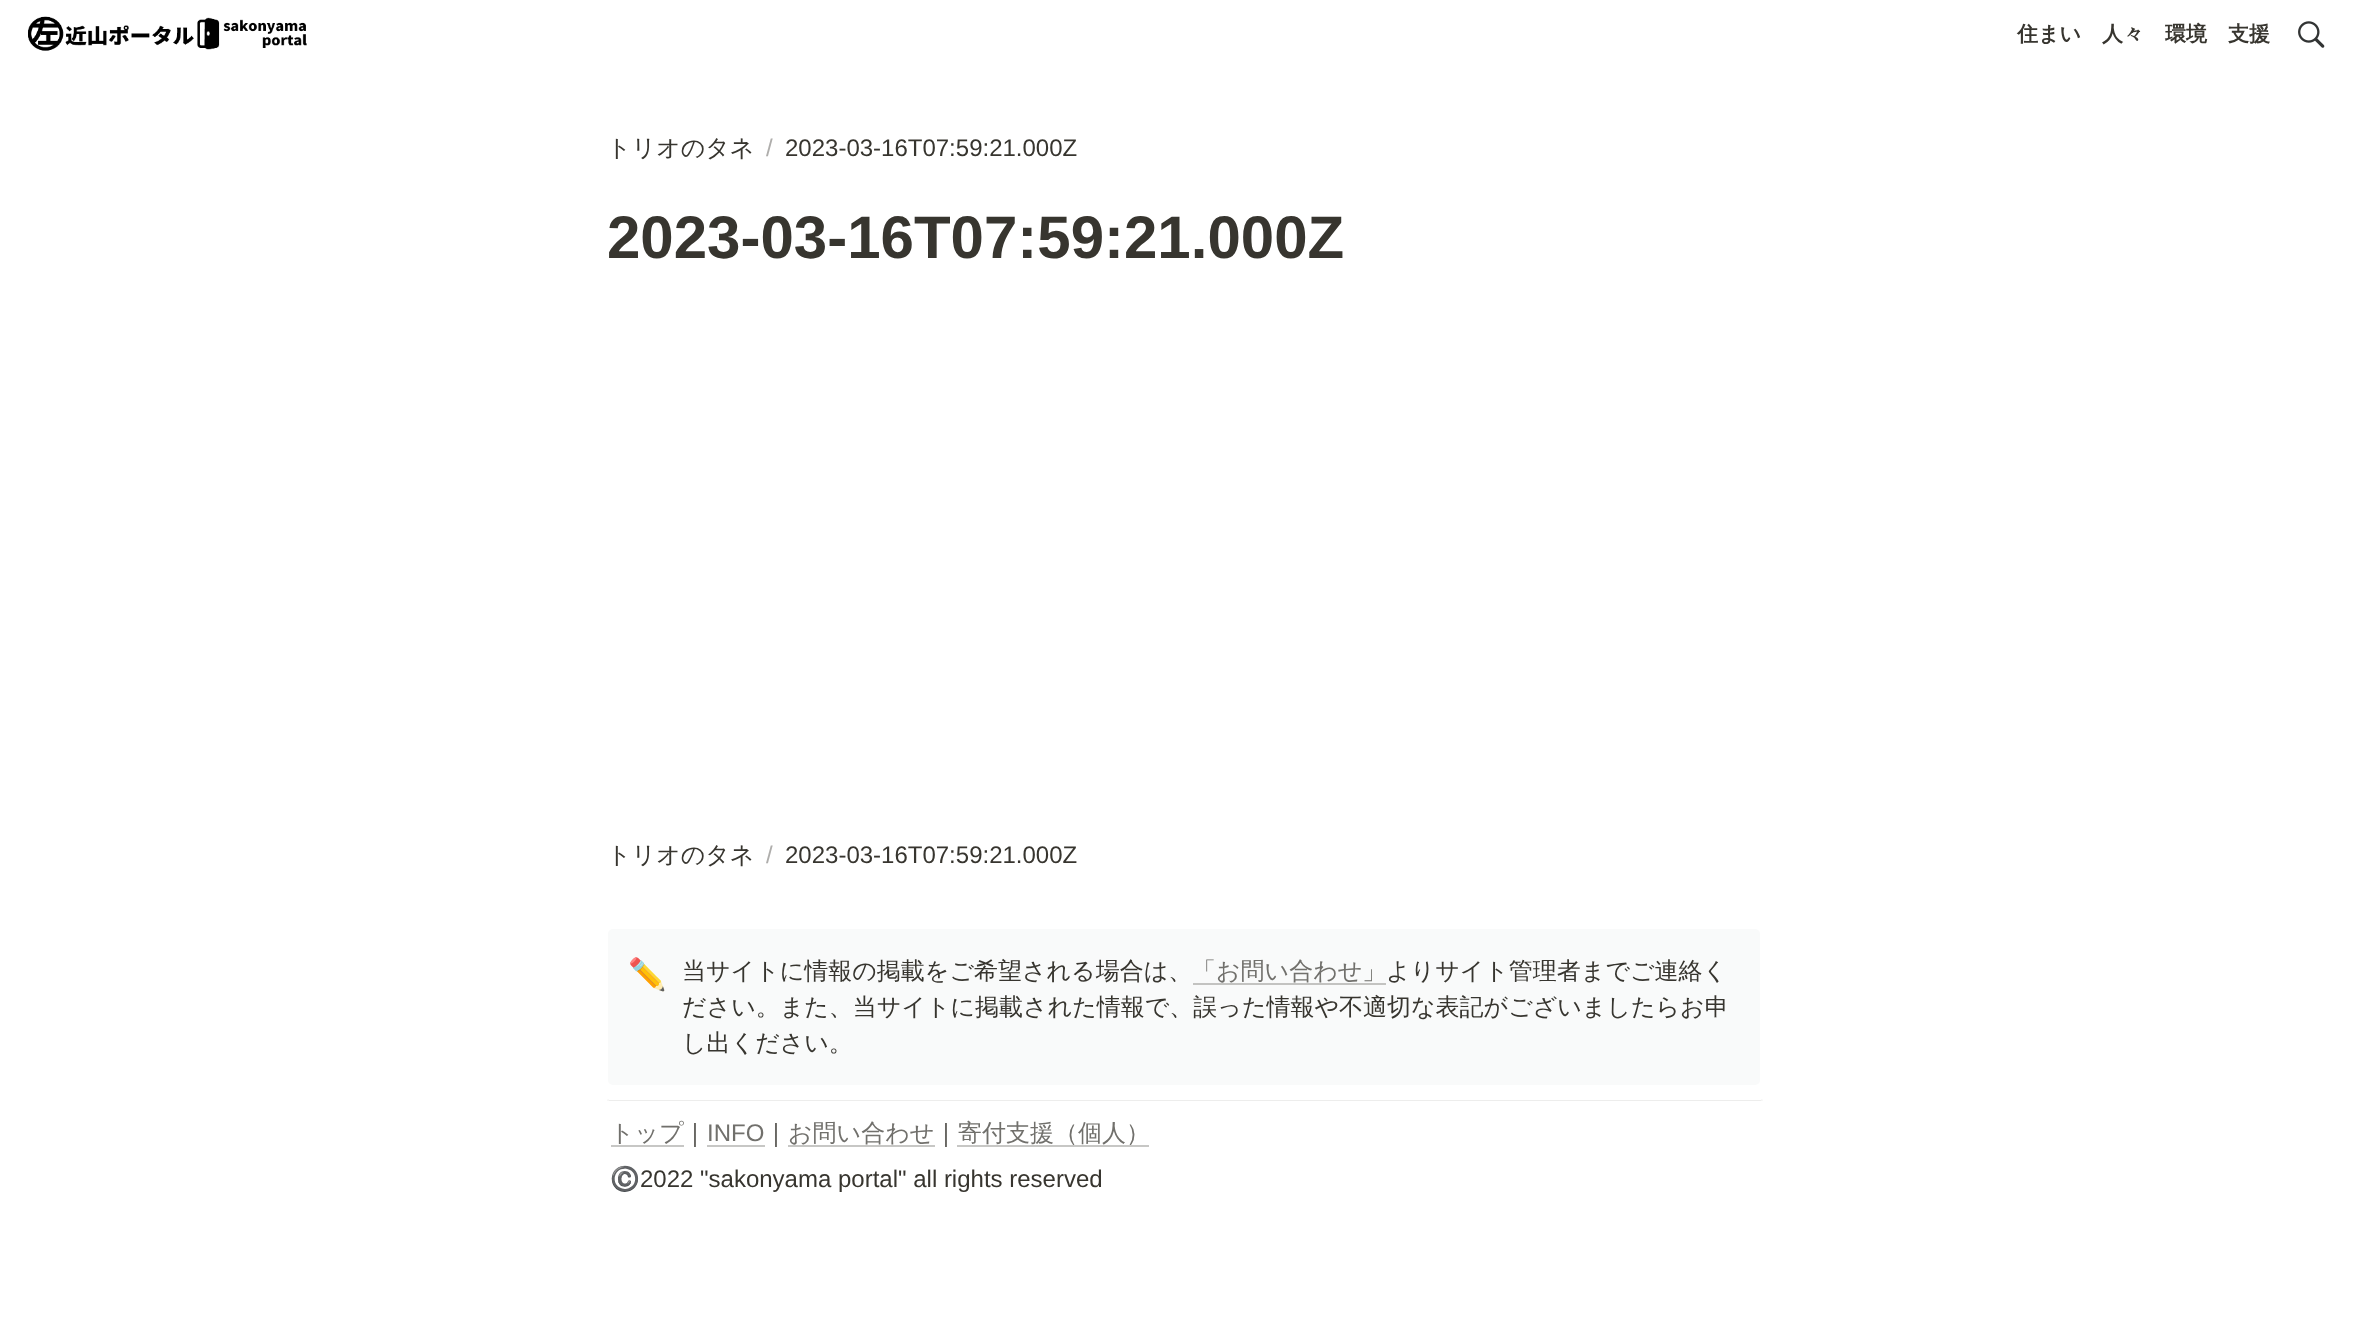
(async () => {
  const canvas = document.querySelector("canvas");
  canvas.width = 2365;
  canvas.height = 1317;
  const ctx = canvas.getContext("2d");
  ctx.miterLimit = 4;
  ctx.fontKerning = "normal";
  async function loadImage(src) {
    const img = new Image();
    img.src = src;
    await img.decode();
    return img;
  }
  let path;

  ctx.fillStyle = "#ffffff";
  ctx.fillRect(0, 0, 2365, 1317);
  ctx.drawImage(await loadImage("img/1.png"), 28, 16, 279, 35);
  ctx.drawImage(await loadImage("img/2.png"), 2298, 21, 27, 27);
  ctx.fillStyle = "#f9fafa";
  ctx.beginPath();
  ctx.roundRect(608, 929, 1152, 156, 5);
  ctx.fill();
  ctx.fillStyle = "#c3c3c1";
  ctx.fillRect(1193, 983, 193, 2);
  ctx.fillStyle = "#ededec";
  path = new Path2D("M1762.5 1099.5V1101L1761 1099.5Z");
  ctx.fill(path);
  path = new Path2D("M1762 1101H608L609 1100H1761Z");
  ctx.fill(path);
  ctx.fillStyle = "#ebebeb";
  path = new Path2D("M607.5 1101V1099.5H609Z");
  ctx.fill(path);
  for (const [x, y, w, h, color] of [
    [611, 1145, 73, 2, "#c7c7c5"],
    [707, 1145, 58, 2, "#c7c7c5"],
    [788, 1145, 147, 2, "#c7c7c5"],
    [957, 1145, 192, 2, "#c7c7c5"],
  ]) {
    ctx.fillStyle = color;
    ctx.fillRect(x, y, w, h);
  }
  ctx.font = "bold 21px WenQuanYi Zen Hei";
  ctx.fillStyle = "#37352f";
  for (const [text, x, y] of [
    ["住まい", 2017, 41],
    ["人々", 2102, 41],
    ["環境", 2165, 41],
    ["支援", 2228, 41],
  ]) {
    ctx.fillText(text, x, y);
  }
  ctx.font = "500 24px WenQuanYi Zen Hei";
  ctx.fillText("トリオのタネ", 607, 156);
  ctx.font = "24px Liberation Sans";
  ctx.fillStyle = "#afaeac";
  ctx.fillText("/", 766, 156);
  ctx.fillStyle = "#37352f";
  ctx.fillText("2023-03-16T07:59:21.000Z", 785, 156);
  ctx.font = "bold 60px Liberation Sans";
  ctx.fillText("2023-03-16T07:59:21.000Z", 607, 258);
  ctx.font = "500 24px WenQuanYi Zen Hei";
  ctx.fillText("トリオのタネ", 607, 863);
  ctx.font = "24px Liberation Sans";
  ctx.fillStyle = "#afaeac";
  ctx.fillText("/", 766, 863);
  ctx.fillStyle = "#37352f";
  ctx.fillText("2023-03-16T07:59:21.000Z", 785, 863);
  ctx.font = "31px Noto Color Emoji";
  ctx.fillText("✏️", 628, 985);
  ctx.font = "500 24px WenQuanYi Zen Hei";
  ctx.fillText("当サイトに情報の掲載をご希望される場合は、", 682, 979);
  ctx.fillStyle = "#71706c";
  ctx.fillText("「お問い合わせ」", 1192, 979);
  ctx.fillStyle = "#37352f";
  for (const [text, x, y] of [
    ["よりサイト管理者までご連絡く", 1386, 979],
    ["ださい。また、当サイトに掲載された情報で、誤った情報や不適切な表記がございましたらお申", 682, 1015],
    ["し出ください。", 682, 1051],
  ]) {
    ctx.fillText(text, x, y);
  }
  ctx.fillStyle = "#71706c";
  ctx.fillText("トップ", 610, 1141);
  ctx.fillStyle = "#37352f";
  ctx.fillText("｜", 683, 1141);
  ctx.font = "24px Liberation Sans";
  ctx.fillStyle = "#71706c";
  ctx.fillText("INFO", 707, 1141);
  ctx.font = "500 24px WenQuanYi Zen Hei";
  ctx.fillStyle = "#37352f";
  ctx.fillText("｜", 764, 1141);
  ctx.fillStyle = "#71706c";
  ctx.fillText("お問い合わせ", 788, 1141);
  ctx.fillStyle = "#37352f";
  ctx.fillText("｜", 934, 1141);
  ctx.fillStyle = "#71706c";
  ctx.fillText("寄付支援（個人）", 958, 1141);
  ctx.font = "24px Noto Color Emoji";
  ctx.fillStyle = "#37352f";
  ctx.fillText("©️", 610, 1187);
  ctx.font = "24px Liberation Sans";
  ctx.fillText("2022 \"sakonyama portal\" all rights reserved", 640, 1187);
})();
